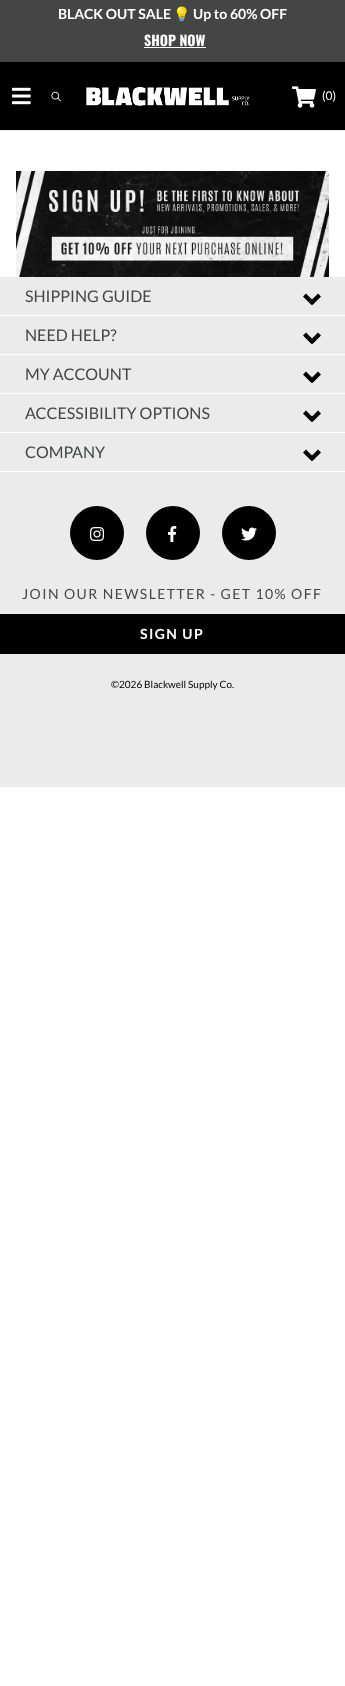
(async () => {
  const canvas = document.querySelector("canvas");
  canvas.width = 345;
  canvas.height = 1686;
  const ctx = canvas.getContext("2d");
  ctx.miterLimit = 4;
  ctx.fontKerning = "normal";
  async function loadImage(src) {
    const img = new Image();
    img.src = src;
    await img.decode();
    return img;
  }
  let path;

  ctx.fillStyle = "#ffffff";
  ctx.fillRect(0, 0, 345, 1686);
  for (const [x, y, w, h, color] of [
    [0, 0, 345, 62, "#454545"],
    [144, 47, 62, 1, "#ffffff"],
    [0, 62, 345, 68, "#000000"],
    [0, 130, 345, 1, "#ebebeb"],
  ]) {
    ctx.fillStyle = color;
    ctx.fillRect(x, y, w, h);
  }
  ctx.drawImage(await loadImage("img/1.png"), 12, 87, 19, 18);
  ctx.drawImage(await loadImage("img/2.png"), 51, 91, 10, 11);
  ctx.drawImage(await loadImage("img/3.png"), 86, 87, 164, 19);
  ctx.drawImage(await loadImage("img/4.png"), 292, 86, 24, 22);
  ctx.drawImage(await loadImage("img/5.png"), 16, 171, 313, 106);
  ctx.fillRect(0, 277, 345, 510);
  ctx.fillStyle = "#ffffff";
  ctx.fillRect(0, 315, 345, 1);
  ctx.fillStyle = "#000000";
  path = new Path2D("M306 293.5L314.5 302L311.5 305L303 296.5Z");
  ctx.fill(path);
  path = new Path2D("M309.5 302L318 293.5L321 296.5L312.5 305ZM306 332.5L314.5 341L311.5 344L303 335.5Z");
  ctx.fill(path);
  ctx.fillStyle = "#ffffff";
  ctx.fillRect(0, 354, 345, 1);
  ctx.fillStyle = "#000000";
  path = new Path2D("M309.5 341L318 332.5L321 335.5L312.5 344ZM306 371.5L314.5 380L311.5 383L303 374.5Z");
  ctx.fill(path);
  ctx.fillStyle = "#ffffff";
  ctx.fillRect(0, 393, 345, 1);
  ctx.fillStyle = "#000000";
  path = new Path2D("M309.5 380L318 371.5L321 374.5L312.5 383ZM306 410.5L314.5 419L311.5 422L303 413.5Z");
  ctx.fill(path);
  ctx.fillStyle = "#ffffff";
  ctx.fillRect(0, 432, 345, 1);
  ctx.fillStyle = "#000000";
  path = new Path2D("M309.5 419L318 410.5L321 413.5L312.5 422ZM306 449.5L314.5 458L311.5 461L303 452.5Z");
  ctx.fill(path);
  ctx.fillStyle = "#ffffff";
  ctx.fillRect(0, 471, 345, 1);
  ctx.fillStyle = "#000000";
  path = new Path2D("M309.5 458L318 449.5L321 452.5L312.5 461Z");
  ctx.fill(path);
  ctx.beginPath();
  ctx.arc(97, 533, 27, 0, Math.PI * 2);
  ctx.fill();
  ctx.drawImage(await loadImage("img/6.png"), 90, 527, 14, 14);
  ctx.beginPath();
  ctx.arc(173, 533, 27, 0, Math.PI * 2);
  ctx.fill();
  ctx.drawImage(await loadImage("img/7.png"), 168, 526, 9, 16);
  ctx.beginPath();
  ctx.arc(249, 533, 27, 0, Math.PI * 2);
  ctx.fill();
  ctx.drawImage(await loadImage("img/8.png"), 241, 527, 16, 14);
  ctx.fillRect(0, 614, 345, 40);
  ctx.font = "bold 14px Lato";
  ctx.fillStyle = "#ffffff";
  ctx.fillText("BLACK OUT SALE", 58, 19);
  ctx.font = "14px Noto Color Emoji";
  ctx.fillText("💡", 173, 19);
  ctx.font = "bold 14px Lato";
  ctx.fillText("Up to 60% OFF", 193, 19);
  ctx.font = "bold 14px Oswald";
  ctx.fillText("SHOP NOW", 144, 46);
  ctx.font = "12px Lato";
  ctx.fillText("(0)", 322, 100);
  ctx.font = "16px Lato";
  ctx.fillStyle = "#444545";
  for (const [text, x, y] of [
    ["SHIPPING GUIDE", 25, 302],
    ["NEED HELP?", 25, 341],
    ["MY ACCOUNT", 25, 380],
    ["ACCESSIBILITY OPTIONS", 25, 419],
    ["COMPANY", 25, 458],
  ]) {
    ctx.fillText(text, x, y);
  }
  ctx.letterSpacing = "1.4px";
  ctx.font = "14px Lato";
  ctx.fillText("JOIN OUR NEWSLETTER - GET 10% OFF", 22, 599);
  ctx.font = "bold 14px Lato";
  ctx.fillStyle = "#ffffff";
  ctx.fillText("SIGN UP", 140, 639);
  ctx.letterSpacing = "0px";
  ctx.font = "10px Lato";
  ctx.fillStyle = "#000000";
  ctx.fillText("©2026 Blackwell Supply Co.", 111, 688);
})();
